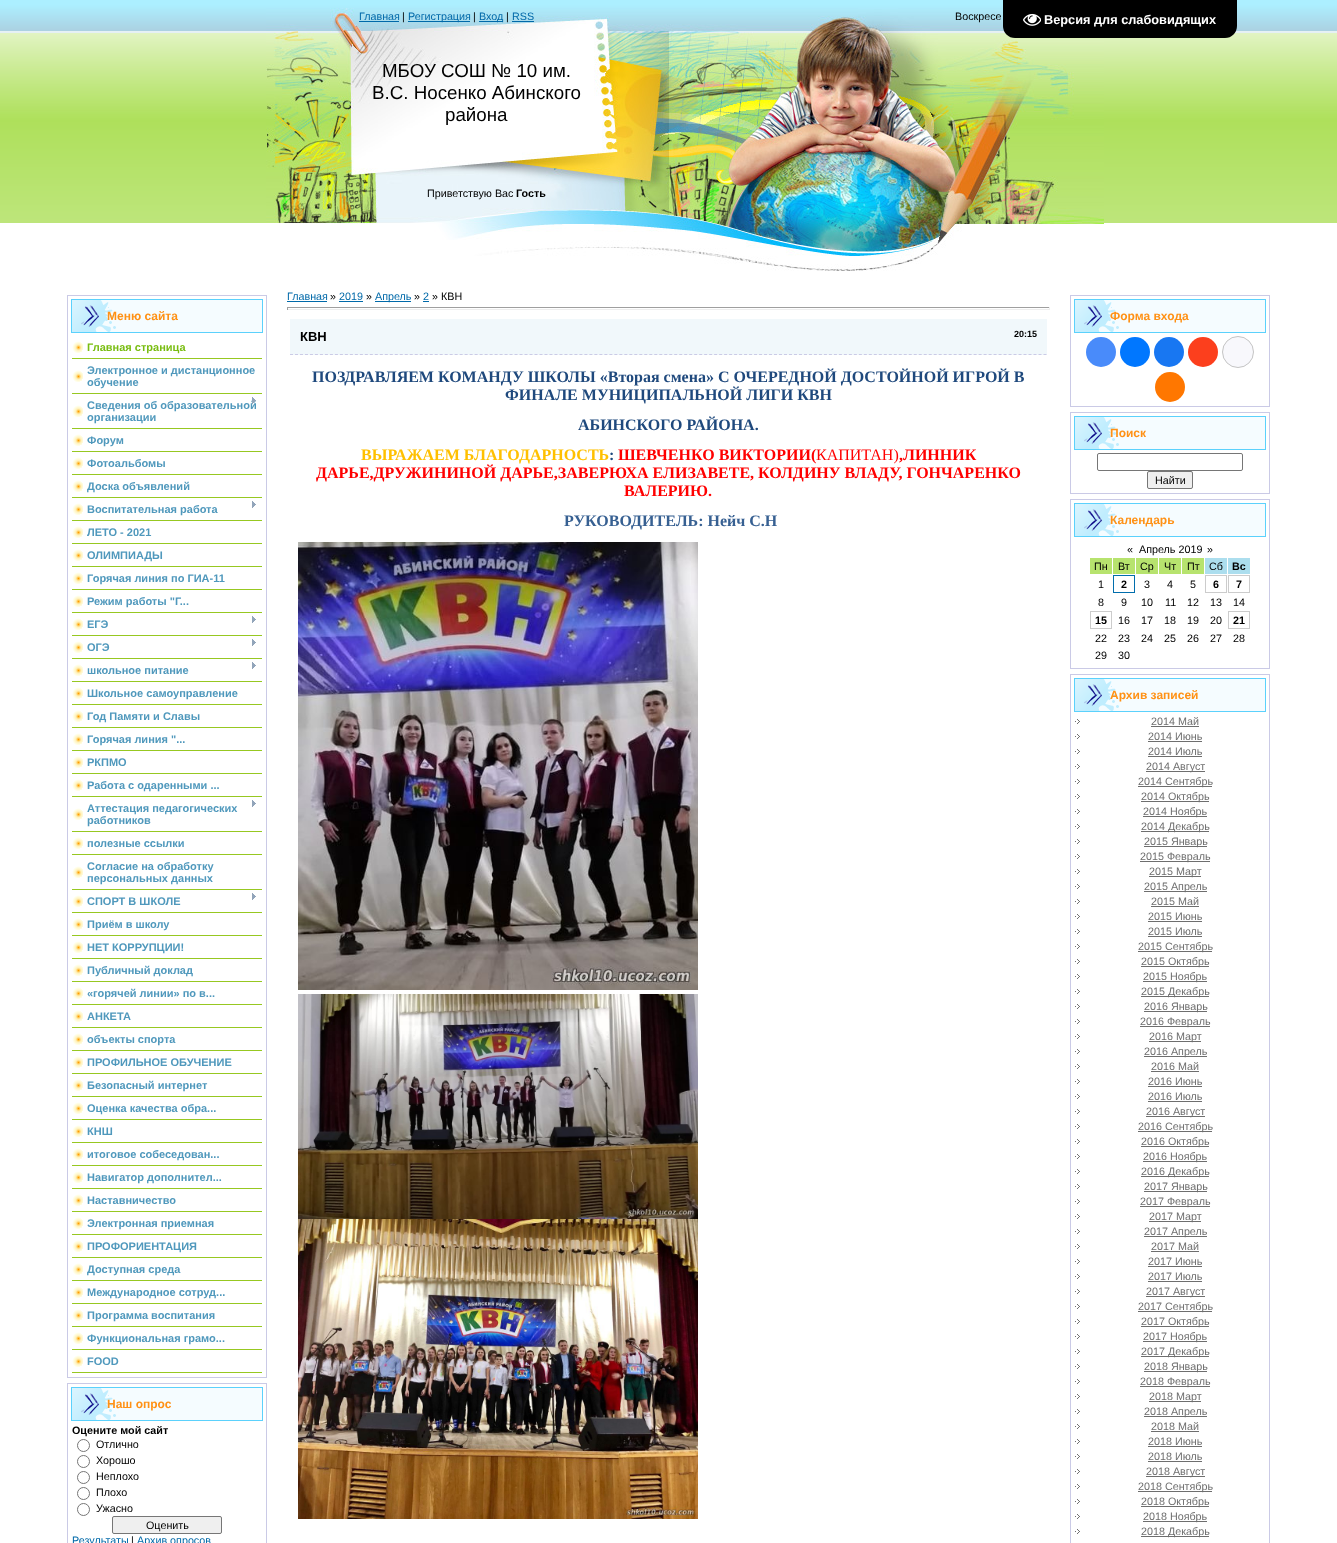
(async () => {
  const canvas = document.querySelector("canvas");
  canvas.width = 1337;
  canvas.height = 1543;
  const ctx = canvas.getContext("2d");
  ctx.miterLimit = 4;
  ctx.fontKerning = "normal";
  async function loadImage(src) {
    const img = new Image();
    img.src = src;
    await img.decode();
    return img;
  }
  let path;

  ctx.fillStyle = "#ffffff";
  ctx.fillRect(0, 0, 1337, 1543);
  ctx.drawImage(await loadImage("img/1.png"), 0, 0, 1337, 223);
  ctx.drawImage(await loadImage("img/2.png"), 266, 8, 838, 263);
  for (const [x, y, w, h, color] of [
    [359, 21, 40, 1, "#0069a9"],
    [408, 21, 62, 1, "#0069a9"],
    [479, 21, 24, 1, "#0069a9"],
    [512, 21, 22, 1, "#0069a9"],
  ]) {
    ctx.fillStyle = color;
    ctx.fillRect(x, y, w, h);
  }
  ctx.strokeStyle = "#cacae6";
  ctx.strokeRect(67.5, 295.5, 199, 1082);
  ctx.fillStyle = "#f5fcff";
  ctx.fillRect(116, 300, 146, 32);
  ctx.drawImage(await loadImage("img/3.png"), 72, 300, 44, 32);
  ctx.strokeStyle = "#5bd1fc";
  ctx.strokeRect(71.5, 299.5, 191, 33);
  ctx.drawImage(await loadImage("img/4.png"), 72, 341, 11, 12);
  ctx.fillStyle = "#97c821";
  ctx.fillRect(72, 358, 190, 1);
  ctx.drawImage(await loadImage("img/4.png"), 72, 370, 11, 12);
  ctx.fillRect(72, 393, 190, 1);
  ctx.drawImage(await loadImage("img/4.png"), 72, 405, 11, 12);
  ctx.fillRect(72, 428, 190, 1);
  ctx.drawImage(await loadImage("img/4.png"), 72, 434, 11, 12);
  ctx.fillRect(72, 451, 190, 1);
  ctx.drawImage(await loadImage("img/4.png"), 72, 457, 11, 12);
  ctx.fillRect(72, 474, 190, 1);
  ctx.drawImage(await loadImage("img/4.png"), 72, 480, 11, 12);
  ctx.fillRect(72, 497, 190, 1);
  ctx.drawImage(await loadImage("img/4.png"), 72, 503, 11, 12);
  ctx.fillRect(72, 520, 190, 1);
  ctx.drawImage(await loadImage("img/6.png"), 252, 501, 4, 7);
  ctx.drawImage(await loadImage("img/4.png"), 72, 526, 11, 12);
  ctx.fillRect(72, 543, 190, 1);
  ctx.drawImage(await loadImage("img/4.png"), 72, 549, 11, 12);
  ctx.fillRect(72, 566, 190, 1);
  ctx.drawImage(await loadImage("img/4.png"), 72, 572, 11, 12);
  ctx.fillRect(72, 589, 190, 1);
  ctx.drawImage(await loadImage("img/4.png"), 72, 595, 11, 12);
  ctx.fillRect(72, 612, 190, 1);
  ctx.drawImage(await loadImage("img/4.png"), 72, 618, 11, 12);
  ctx.fillRect(72, 635, 190, 1);
  ctx.drawImage(await loadImage("img/6.png"), 252, 616, 4, 7);
  ctx.drawImage(await loadImage("img/4.png"), 72, 641, 11, 12);
  ctx.fillRect(72, 658, 190, 1);
  ctx.drawImage(await loadImage("img/6.png"), 252, 639, 4, 7);
  ctx.drawImage(await loadImage("img/4.png"), 72, 664, 11, 12);
  ctx.fillRect(72, 681, 190, 1);
  ctx.drawImage(await loadImage("img/6.png"), 252, 662, 4, 7);
  ctx.drawImage(await loadImage("img/4.png"), 72, 687, 11, 12);
  ctx.fillRect(72, 704, 190, 1);
  ctx.drawImage(await loadImage("img/4.png"), 72, 710, 11, 12);
  ctx.fillRect(72, 727, 190, 1);
  ctx.drawImage(await loadImage("img/4.png"), 72, 733, 11, 12);
  ctx.fillRect(72, 750, 190, 1);
  ctx.drawImage(await loadImage("img/4.png"), 72, 756, 11, 12);
  ctx.fillRect(72, 773, 190, 1);
  ctx.drawImage(await loadImage("img/4.png"), 72, 779, 11, 12);
  ctx.fillRect(72, 796, 190, 1);
  ctx.drawImage(await loadImage("img/4.png"), 72, 808, 11, 12);
  ctx.fillRect(72, 831, 190, 1);
  ctx.drawImage(await loadImage("img/6.png"), 252, 800, 4, 7);
  ctx.drawImage(await loadImage("img/4.png"), 72, 837, 11, 12);
  ctx.fillRect(72, 854, 190, 1);
  ctx.drawImage(await loadImage("img/4.png"), 72, 866, 11, 12);
  ctx.fillRect(72, 889, 190, 1);
  ctx.drawImage(await loadImage("img/4.png"), 72, 895, 11, 12);
  ctx.fillRect(72, 912, 190, 1);
  ctx.drawImage(await loadImage("img/6.png"), 252, 893, 4, 7);
  ctx.drawImage(await loadImage("img/4.png"), 72, 918, 11, 12);
  ctx.fillRect(72, 935, 190, 1);
  ctx.drawImage(await loadImage("img/4.png"), 72, 941, 11, 12);
  ctx.fillRect(72, 958, 190, 1);
  ctx.drawImage(await loadImage("img/4.png"), 72, 964, 11, 12);
  ctx.fillRect(72, 981, 190, 1);
  ctx.drawImage(await loadImage("img/4.png"), 72, 987, 11, 12);
  ctx.fillRect(72, 1004, 190, 1);
  ctx.drawImage(await loadImage("img/4.png"), 72, 1010, 11, 12);
  ctx.fillRect(72, 1027, 190, 1);
  ctx.drawImage(await loadImage("img/4.png"), 72, 1033, 11, 12);
  ctx.fillRect(72, 1050, 190, 1);
  ctx.drawImage(await loadImage("img/4.png"), 72, 1056, 11, 12);
  ctx.fillRect(72, 1073, 190, 1);
  ctx.drawImage(await loadImage("img/4.png"), 72, 1079, 11, 12);
  ctx.fillRect(72, 1096, 190, 1);
  ctx.drawImage(await loadImage("img/4.png"), 72, 1102, 11, 12);
  ctx.fillRect(72, 1119, 190, 1);
  ctx.drawImage(await loadImage("img/4.png"), 72, 1125, 11, 12);
  ctx.fillRect(72, 1142, 190, 1);
  ctx.drawImage(await loadImage("img/4.png"), 72, 1148, 11, 12);
  ctx.fillRect(72, 1165, 190, 1);
  ctx.drawImage(await loadImage("img/4.png"), 72, 1171, 11, 12);
  ctx.fillRect(72, 1188, 190, 1);
  ctx.drawImage(await loadImage("img/4.png"), 72, 1194, 11, 12);
  ctx.fillRect(72, 1211, 190, 1);
  ctx.drawImage(await loadImage("img/4.png"), 72, 1217, 11, 12);
  ctx.fillRect(72, 1234, 190, 1);
  ctx.drawImage(await loadImage("img/4.png"), 72, 1240, 11, 12);
  ctx.fillRect(72, 1257, 190, 1);
  ctx.drawImage(await loadImage("img/4.png"), 72, 1263, 11, 12);
  ctx.fillRect(72, 1280, 190, 1);
  ctx.drawImage(await loadImage("img/4.png"), 72, 1286, 11, 12);
  ctx.fillRect(72, 1303, 190, 1);
  ctx.drawImage(await loadImage("img/4.png"), 72, 1309, 11, 12);
  ctx.fillRect(72, 1326, 190, 1);
  ctx.drawImage(await loadImage("img/4.png"), 72, 1332, 11, 12);
  ctx.fillRect(72, 1349, 190, 1);
  ctx.drawImage(await loadImage("img/4.png"), 72, 1355, 11, 12);
  ctx.fillRect(72, 1372, 190, 1);
  ctx.strokeStyle = "#cacae6";
  ctx.strokeRect(67.5, 1383.5, 199, 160);
  ctx.fillStyle = "#f5fcff";
  ctx.fillRect(116, 1388, 146, 32);
  ctx.drawImage(await loadImage("img/3.png"), 72, 1388, 44, 32);
  ctx.strokeStyle = "#5bd1fc";
  ctx.strokeRect(71.5, 1387.5, 191, 33);
  ctx.beginPath();
  ctx.arc(83.5, 1445.5, 6, 0, Math.PI * 2);
  ctx.strokeStyle = "#767676";
  ctx.stroke();
  ctx.beginPath();
  ctx.arc(83.5, 1461.5, 6, 0, Math.PI * 2);
  ctx.stroke();
  ctx.beginPath();
  ctx.arc(83.5, 1477.5, 6, 0, Math.PI * 2);
  ctx.stroke();
  ctx.beginPath();
  ctx.arc(83.5, 1493.5, 6, 0, Math.PI * 2);
  ctx.stroke();
  ctx.beginPath();
  ctx.arc(83.5, 1509.5, 6, 0, Math.PI * 2);
  ctx.stroke();
  ctx.fillStyle = "#efefef";
  ctx.beginPath();
  ctx.roundRect(112.5, 1516.5, 109, 17, 1.5);
  ctx.fill();
  ctx.stroke();
  for (const [x, y, w, h, color] of [
    [287, 301, 40, 1, "#0069a9"],
    [339, 301, 24, 1, "#0069a9"],
    [375, 301, 36, 1, "#0069a9"],
    [423, 301, 6, 1, "#0069a9"],
    [287, 307, 763, 1, "#9f9f9f"],
    [1049, 307, 1, 3, "#eeeeee"],
    [287, 309, 763, 1, "#eeeeee"],
    [287, 307, 1, 3, "#9f9f9f"],
    [290, 319, 757, 36, "#f1f8fb"],
  ]) {
    ctx.fillStyle = color;
    ctx.fillRect(x, y, w, h);
  }
  path = new Path2D("M290 354.5H1047");
  ctx.strokeStyle = "#cbcbe6";
  ctx.setLineDash([3, 1.99]);
  ctx.stroke(path);
  ctx.drawImage(await loadImage("img/7.png"), 298, 542, 400, 448);
  ctx.drawImage(await loadImage("img/8.png"), 298, 994, 400, 225);
  ctx.drawImage(await loadImage("img/9.png"), 298, 1219, 400, 300);
  ctx.strokeStyle = "#cacae6";
  ctx.setLineDash([]);
  ctx.strokeRect(1070.5, 295.5, 199, 111);
  ctx.fillStyle = "#f5fcff";
  ctx.fillRect(1119, 300, 146, 32);
  ctx.drawImage(await loadImage("img/3.png"), 1075, 300, 44, 32);
  ctx.strokeStyle = "#5bd1fc";
  ctx.strokeRect(1074.5, 299.5, 191, 33);
  ctx.fillStyle = "#498bfa";
  ctx.beginPath();
  ctx.arc(1101, 352, 15, 0, Math.PI * 2);
  ctx.fill();
  ctx.fillStyle = "#0077ff";
  ctx.beginPath();
  ctx.arc(1135, 352, 15, 0, Math.PI * 2);
  ctx.fill();
  ctx.fillStyle = "#1877f2";
  ctx.beginPath();
  ctx.arc(1169, 352, 15, 0, Math.PI * 2);
  ctx.fill();
  ctx.fillStyle = "#fc3f1d";
  ctx.beginPath();
  ctx.arc(1203, 352, 15, 0, Math.PI * 2);
  ctx.fill();
  ctx.fillStyle = "#f8f8fc";
  ctx.beginPath();
  ctx.arc(1238, 352, 15.5, 0, Math.PI * 2);
  ctx.fill();
  ctx.strokeStyle = "#c4c4c4";
  ctx.stroke();
  ctx.fillStyle = "#ff7700";
  ctx.beginPath();
  ctx.arc(1170, 387, 15, 0, Math.PI * 2);
  ctx.fill();
  ctx.strokeStyle = "#cacae6";
  ctx.strokeRect(1070.5, 412.5, 199, 81);
  ctx.fillStyle = "#f5fcff";
  ctx.fillRect(1119, 417, 146, 32);
  ctx.drawImage(await loadImage("img/3.png"), 1075, 417, 44, 32);
  ctx.strokeStyle = "#5bd1fc";
  ctx.strokeRect(1074.5, 416.5, 191, 33);
  ctx.beginPath();
  ctx.roundRect(1097.5, 453.5, 145, 17, 1.5);
  ctx.strokeStyle = "#767676";
  ctx.stroke();
  ctx.fillStyle = "#efefef";
  ctx.beginPath();
  ctx.roundRect(1147.5, 471.5, 45, 17, 1.5);
  ctx.fill();
  ctx.stroke();
  ctx.strokeStyle = "#cacae6";
  ctx.strokeRect(1070.5, 499.5, 199, 169);
  ctx.fillStyle = "#f5fcff";
  ctx.fillRect(1119, 504, 146, 32);
  ctx.drawImage(await loadImage("img/3.png"), 1075, 504, 44, 32);
  ctx.strokeStyle = "#5bd1fc";
  ctx.strokeRect(1074.5, 503.5, 191, 33);
  for (const [x, y, w, h, color] of [
    [1090, 558, 22, 16, "#b7e36e"],
    [1113, 558, 22, 16, "#b7e36e"],
    [1136, 558, 22, 16, "#b7e36e"],
    [1159, 558, 22, 16, "#b7e36e"],
    [1182, 558, 22, 16, "#b7e36e"],
    [1205, 558, 22, 16, "#acdeee"],
    [1228, 558, 22, 16, "#acdeee"],
  ]) {
    ctx.fillStyle = color;
    ctx.fillRect(x, y, w, h);
  }
  ctx.strokeStyle = "#016ead";
  ctx.strokeRect(1113.5, 575.5, 21, 17);
  ctx.strokeStyle = "#cccccc";
  ctx.strokeRect(1205.5, 575.5, 21, 17);
  ctx.strokeRect(1228.5, 575.5, 21, 17);
  ctx.strokeRect(1090.5, 611.5, 21, 17);
  ctx.strokeRect(1228.5, 611.5, 21, 17);
  ctx.strokeStyle = "#cacae6";
  ctx.strokeRect(1070.5, 674.5, 199, 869);
  ctx.fillStyle = "#f5fcff";
  ctx.fillRect(1119, 679, 146, 32);
  ctx.drawImage(await loadImage("img/3.png"), 1075, 679, 44, 32);
  ctx.strokeStyle = "#5bd1fc";
  ctx.strokeRect(1074.5, 678.5, 191, 33);
  ctx.drawImage(await loadImage("img/10.png"), 1075, 719, 5, 5);
  ctx.fillStyle = "#6e6e6e";
  ctx.fillRect(1151, 726, 48, 1);
  ctx.drawImage(await loadImage("img/10.png"), 1075, 734, 5, 5);
  ctx.fillRect(1148, 741, 54, 1);
  ctx.drawImage(await loadImage("img/10.png"), 1075, 749, 5, 5);
  ctx.fillRect(1148, 756, 54, 1);
  ctx.drawImage(await loadImage("img/10.png"), 1075, 764, 5, 5);
  ctx.fillRect(1146, 771, 59, 1);
  ctx.drawImage(await loadImage("img/10.png"), 1075, 779, 5, 5);
  ctx.fillRect(1138, 786, 74, 1);
  ctx.drawImage(await loadImage("img/10.png"), 1075, 794, 5, 5);
  ctx.fillRect(1141, 801, 68, 1);
  ctx.drawImage(await loadImage("img/10.png"), 1075, 809, 5, 5);
  ctx.fillRect(1143, 816, 64, 1);
  ctx.drawImage(await loadImage("img/10.png"), 1075, 824, 5, 5);
  ctx.fillRect(1141, 831, 68, 1);
  ctx.drawImage(await loadImage("img/10.png"), 1075, 839, 5, 5);
  ctx.fillRect(1144, 846, 63, 1);
  ctx.drawImage(await loadImage("img/10.png"), 1075, 854, 5, 5);
  ctx.fillRect(1140, 861, 70, 1);
  ctx.drawImage(await loadImage("img/10.png"), 1075, 869, 5, 5);
  ctx.fillRect(1149, 876, 52, 1);
  ctx.drawImage(await loadImage("img/10.png"), 1075, 884, 5, 5);
  ctx.fillRect(1144, 891, 63, 1);
  ctx.drawImage(await loadImage("img/10.png"), 1075, 899, 5, 5);
  ctx.fillRect(1151, 906, 48, 1);
  ctx.drawImage(await loadImage("img/10.png"), 1075, 914, 5, 5);
  ctx.fillRect(1148, 921, 54, 1);
  ctx.drawImage(await loadImage("img/10.png"), 1075, 929, 5, 5);
  ctx.fillRect(1148, 936, 54, 1);
  ctx.drawImage(await loadImage("img/10.png"), 1075, 944, 5, 5);
  ctx.fillRect(1138, 951, 74, 1);
  ctx.drawImage(await loadImage("img/10.png"), 1075, 959, 5, 5);
  ctx.fillRect(1141, 966, 68, 1);
  ctx.drawImage(await loadImage("img/10.png"), 1075, 974, 5, 5);
  ctx.fillRect(1143, 981, 64, 1);
  ctx.drawImage(await loadImage("img/10.png"), 1075, 989, 5, 5);
  ctx.fillRect(1141, 996, 68, 1);
  ctx.drawImage(await loadImage("img/10.png"), 1075, 1004, 5, 5);
  ctx.fillRect(1144, 1011, 63, 1);
  ctx.drawImage(await loadImage("img/10.png"), 1075, 1019, 5, 5);
  ctx.fillRect(1140, 1026, 70, 1);
  ctx.drawImage(await loadImage("img/10.png"), 1075, 1034, 5, 5);
  ctx.fillRect(1149, 1041, 52, 1);
  ctx.drawImage(await loadImage("img/10.png"), 1075, 1049, 5, 5);
  ctx.fillRect(1144, 1056, 63, 1);
  ctx.drawImage(await loadImage("img/10.png"), 1075, 1064, 5, 5);
  ctx.fillRect(1151, 1071, 48, 1);
  ctx.drawImage(await loadImage("img/10.png"), 1075, 1079, 5, 5);
  ctx.fillRect(1148, 1086, 54, 1);
  ctx.drawImage(await loadImage("img/10.png"), 1075, 1094, 5, 5);
  ctx.fillRect(1148, 1101, 54, 1);
  ctx.drawImage(await loadImage("img/10.png"), 1075, 1109, 5, 5);
  ctx.fillRect(1146, 1116, 59, 1);
  ctx.drawImage(await loadImage("img/10.png"), 1075, 1124, 5, 5);
  ctx.fillRect(1138, 1131, 74, 1);
  ctx.drawImage(await loadImage("img/10.png"), 1075, 1139, 5, 5);
  ctx.fillRect(1141, 1146, 68, 1);
  ctx.drawImage(await loadImage("img/10.png"), 1075, 1154, 5, 5);
  ctx.fillRect(1143, 1161, 64, 1);
  ctx.drawImage(await loadImage("img/10.png"), 1075, 1169, 5, 5);
  ctx.fillRect(1141, 1176, 68, 1);
  ctx.drawImage(await loadImage("img/10.png"), 1075, 1184, 5, 5);
  ctx.fillRect(1144, 1191, 63, 1);
  ctx.drawImage(await loadImage("img/10.png"), 1075, 1199, 5, 5);
  ctx.fillRect(1140, 1206, 70, 1);
  ctx.drawImage(await loadImage("img/10.png"), 1075, 1214, 5, 5);
  ctx.fillRect(1149, 1221, 52, 1);
  ctx.drawImage(await loadImage("img/10.png"), 1075, 1229, 5, 5);
  ctx.fillRect(1144, 1236, 63, 1);
  ctx.drawImage(await loadImage("img/10.png"), 1075, 1244, 5, 5);
  ctx.fillRect(1151, 1251, 48, 1);
  ctx.drawImage(await loadImage("img/10.png"), 1075, 1259, 5, 5);
  ctx.fillRect(1148, 1266, 54, 1);
  ctx.drawImage(await loadImage("img/10.png"), 1075, 1274, 5, 5);
  ctx.fillRect(1148, 1281, 54, 1);
  ctx.drawImage(await loadImage("img/10.png"), 1075, 1289, 5, 5);
  ctx.fillRect(1146, 1296, 59, 1);
  ctx.drawImage(await loadImage("img/10.png"), 1075, 1304, 5, 5);
  ctx.fillRect(1138, 1311, 74, 1);
  ctx.drawImage(await loadImage("img/10.png"), 1075, 1319, 5, 5);
  ctx.fillRect(1141, 1326, 68, 1);
  ctx.drawImage(await loadImage("img/10.png"), 1075, 1334, 5, 5);
  ctx.fillRect(1143, 1341, 64, 1);
  ctx.drawImage(await loadImage("img/10.png"), 1075, 1349, 5, 5);
  ctx.fillRect(1141, 1356, 68, 1);
  ctx.drawImage(await loadImage("img/10.png"), 1075, 1364, 5, 5);
  ctx.fillRect(1144, 1371, 63, 1);
  ctx.drawImage(await loadImage("img/10.png"), 1075, 1379, 5, 5);
  ctx.fillRect(1140, 1386, 70, 1);
  ctx.drawImage(await loadImage("img/10.png"), 1075, 1394, 5, 5);
  ctx.fillRect(1149, 1401, 52, 1);
  ctx.drawImage(await loadImage("img/10.png"), 1075, 1409, 5, 5);
  ctx.fillRect(1144, 1416, 63, 1);
  ctx.drawImage(await loadImage("img/10.png"), 1075, 1424, 5, 5);
  ctx.fillRect(1151, 1431, 48, 1);
  ctx.drawImage(await loadImage("img/10.png"), 1075, 1439, 5, 5);
  ctx.fillRect(1148, 1446, 54, 1);
  ctx.drawImage(await loadImage("img/10.png"), 1075, 1454, 5, 5);
  ctx.fillRect(1148, 1461, 54, 1);
  ctx.drawImage(await loadImage("img/10.png"), 1075, 1469, 5, 5);
  ctx.fillRect(1146, 1476, 59, 1);
  ctx.drawImage(await loadImage("img/10.png"), 1075, 1484, 5, 5);
  ctx.fillRect(1138, 1491, 74, 1);
  ctx.drawImage(await loadImage("img/10.png"), 1075, 1499, 5, 5);
  ctx.fillRect(1141, 1506, 68, 1);
  ctx.drawImage(await loadImage("img/10.png"), 1075, 1514, 5, 5);
  ctx.fillRect(1143, 1521, 64, 1);
  ctx.drawImage(await loadImage("img/10.png"), 1075, 1529, 5, 5);
  ctx.fillRect(1141, 1536, 68, 1);
  ctx.fillStyle = "#000000";
  ctx.beginPath();
  ctx.roundRect(1003, 0, 234, 38, [0, 0, 12, 12]);
  ctx.fill();
  ctx.drawImage(await loadImage("img/11.png"), 1023, 13, 18, 13);
  ctx.font = "10.75px Liberation Sans";
  ctx.fillStyle = "#0069a9";
  ctx.fillText("Главная", 359, 20);
  ctx.fillStyle = "#000000";
  ctx.fillText("|", 402, 20);
  ctx.fillStyle = "#0069a9";
  ctx.fillText("Регистрация", 408, 20);
  ctx.fillStyle = "#000000";
  ctx.fillText("|", 473, 20);
  ctx.fillStyle = "#0069a9";
  ctx.fillText("Вход", 479, 20);
  ctx.fillStyle = "#000000";
  ctx.fillText("|", 506, 20);
  ctx.fillStyle = "#0069a9";
  ctx.fillText("RSS", 512, 20);
  ctx.fillStyle = "#000000";
  ctx.fillText("Воскресе", 955, 20);
  ctx.font = "18.75px Liberation Sans";
  for (const [text, x, y] of [
    ["МБОУ СОШ № 10 им.", 382, 77],
    ["В.С. Носенко Абинского", 372, 99],
    ["района", 445, 121],
  ]) {
    ctx.fillText(text, x, y);
  }
  ctx.font = "10.75px Liberation Sans";
  ctx.fillText("Приветствую Вас", 427, 197);
  ctx.font = "bold 10.75px Liberation Sans";
  ctx.fillText("Гость", 516, 197);
  ctx.font = "bold 12px Liberation Sans";
  ctx.fillStyle = "#ff9115";
  ctx.fillText("Меню сайта", 107, 320);
  ctx.font = "bold 11px Liberation Sans";
  ctx.fillStyle = "#79bd11";
  ctx.fillText("Главная страница", 87, 351);
  ctx.fillStyle = "#4f98bc";
  for (const [text, x, y] of [
    ["Электронное и дистанционное", 87, 374],
    ["обучение", 87, 386],
    ["Сведения об образовательной", 87, 409],
  ]) {
    ctx.fillText(text, x, y);
  }
  ctx.drawImage(await loadImage("img/5.png"), 252, 397, 4, 7);
  for (const [text, x, y] of [
    ["организации", 87, 421],
    ["Форум", 87, 444],
    ["Фотоальбомы", 87, 467],
    ["Доска объявлений", 87, 490],
    ["Воспитательная работа", 87, 513],
    ["ЛЕТО - 2021", 87, 536],
    ["ОЛИМПИАДЫ", 87, 559],
    ["Горячая линия по ГИА-11", 87, 582],
    ["Режим работы \"Г...", 87, 605],
    ["ЕГЭ", 87, 628],
    ["ОГЭ", 87, 651],
    ["школьное питание", 87, 674],
    ["Школьное самоуправление", 87, 697],
    ["Год Памяти и Славы", 87, 720],
    ["Горячая линия \"...", 87, 743],
    ["РКПМО", 87, 766],
    ["Работа с одаренными ...", 87, 789],
    ["Аттестация педагогических", 87, 812],
    ["работников", 87, 824],
    ["полезные ссылки", 87, 847],
    ["Согласие на обработку", 87, 870],
    ["персональных данных", 87, 882],
    ["СПОРТ В ШКОЛЕ", 87, 905],
    ["Приём в школу", 87, 928],
    ["НЕТ КОРРУПЦИИ!", 87, 951],
    ["Публичный доклад", 87, 974],
    ["«горячей линии» по в...", 87, 997],
    ["АНКЕТА", 87, 1020],
    ["объекты спорта", 87, 1043],
    ["ПРОФИЛЬНОЕ ОБУЧЕНИЕ", 87, 1066],
    ["Безопасный интернет", 87, 1089],
    ["Оценка качества обра...", 87, 1112],
    ["КНШ", 87, 1135],
    ["итоговое собеседован...", 87, 1158],
    ["Навигатор дополнител...", 87, 1181],
    ["Наставничество", 87, 1204],
    ["Электронная приемная", 87, 1227],
    ["ПРОФОРИЕНТАЦИЯ", 87, 1250],
    ["Доступная среда", 87, 1273],
    ["Международное сотруд...", 87, 1296],
    ["Программа воспитания", 87, 1319],
    ["Функциональная грамо...", 87, 1342],
    ["FOOD", 87, 1365],
  ]) {
    ctx.fillText(text, x, y);
  }
  ctx.font = "bold 12px Liberation Sans";
  ctx.fillStyle = "#ff9115";
  ctx.fillText("Наш опрос", 107, 1408);
  ctx.font = "bold 10.75px Liberation Sans";
  ctx.fillStyle = "#000000";
  ctx.fillText("Оцените мой сайт", 72, 1434);
  ctx.font = "10.75px Liberation Sans";
  for (const [text, x, y] of [
    ["Отлично", 96, 1448],
    ["Хорошо", 96, 1464],
    ["Неплохо", 96, 1480],
    ["Плохо", 96, 1496],
    ["Ужасно", 96, 1512],
    ["Оценить", 146, 1529],
  ]) {
    ctx.fillText(text, x, y);
  }
  ctx.fillStyle = "#0069a9";
  ctx.fillText("Результаты", 72, 1544);
  ctx.fillStyle = "#000000";
  ctx.fillText("|", 131, 1544);
  ctx.fillStyle = "#0069a9";
  ctx.fillText("Архив опросов", 137, 1544);
  ctx.fillText("Главная", 287, 300);
  ctx.fillStyle = "#000000";
  ctx.fillText("»", 330, 300);
  ctx.fillStyle = "#0069a9";
  ctx.fillText("2019", 339, 300);
  ctx.fillStyle = "#000000";
  ctx.fillText("»", 366, 300);
  ctx.fillStyle = "#0069a9";
  ctx.fillText("Апрель", 375, 300);
  ctx.fillStyle = "#000000";
  ctx.fillText("»", 414, 300);
  ctx.fillStyle = "#0069a9";
  ctx.fillText("2", 423, 300);
  ctx.fillStyle = "#000000";
  ctx.fillText("» КВН", 432, 300);
  ctx.font = "bold 13px Liberation Sans";
  ctx.fillText("КВН", 300, 341);
  ctx.font = "bold 9px Liberation Sans";
  ctx.fillText("20:15", 1014, 337);
  ctx.font = "bold 16px Liberation Serif";
  ctx.fillStyle = "#1f497d";
  for (const [text, x, y] of [
    ["ПОЗДРАВЛЯЕМ КОМАНДУ ШКОЛЫ «Вторая смена» С ОЧЕРЕДНОЙ ДОСТОЙНОЙ ИГРОЙ В", 312, 382],
    ["ФИНАЛЕ МУНИЦИПАЛЬНОЙ ЛИГИ КВН", 505, 400],
    ["АБИНСКОГО РАЙОНА.", 578, 430],
  ]) {
    ctx.fillText(text, x, y);
  }
  ctx.fillStyle = "#ffc000";
  ctx.fillText("ВЫРАЖАЕМ БЛАГОДАРНОСТЬ", 361, 460);
  ctx.fillStyle = "#1f497d";
  ctx.fillText(":", 609, 460);
  ctx.fillStyle = "#ff0000";
  ctx.fillText("ШЕВЧЕНКО ВИКТОРИИ(", 618, 460);
  ctx.font = "16px Liberation Serif";
  ctx.fillText("КАПИТАН)", 816, 460);
  ctx.font = "bold 16px Liberation Serif";
  for (const [text, x, y] of [
    [",ЛИННИК", 899, 460],
    ["ДАРЬЕ,ДРУЖИНИНОЙ ДАРЬЕ,ЗАВЕРЮХА ЕЛИЗАВЕТЕ, КОЛДИНУ ВЛАДУ, ГОНЧАРЕНКО", 316, 478],
    ["ВАЛЕРИЮ.", 624, 496],
  ]) {
    ctx.fillText(text, x, y);
  }
  ctx.fillStyle = "#376092";
  ctx.fillText("РУКОВОДИТЕЛЬ: Нейч С.Н", 564, 526);
  ctx.font = "bold 12px Liberation Sans";
  ctx.fillStyle = "#ff9115";
  ctx.fillText("Форма входа", 1110, 320);
  ctx.fillText("Поиск", 1110, 437);
  ctx.font = "10.75px Liberation Sans";
  ctx.fillStyle = "#000000";
  ctx.fillText("Найти", 1155, 484);
  ctx.font = "bold 12px Liberation Sans";
  ctx.fillStyle = "#ff9115";
  ctx.fillText("Календарь", 1110, 524);
  ctx.font = "10.75px Liberation Sans";
  ctx.fillStyle = "#000000";
  for (const [text, x, y] of [
    ["«", 1127, 553],
    ["Апрель 2019", 1139, 553],
    ["»", 1207, 553],
    ["Пн", 1094, 570],
    ["Вт", 1118, 570],
    ["Ср", 1140, 570],
    ["Чт", 1164, 570],
    ["Пт", 1187, 570],
    ["Сб", 1209, 570],
  ]) {
    ctx.fillText(text, x, y);
  }
  ctx.font = "bold 10.75px Liberation Sans";
  ctx.fillText("Вс", 1232, 570);
  ctx.font = "10.75px Liberation Sans";
  ctx.fillText("1", 1098, 588);
  ctx.font = "bold 10.75px Liberation Sans";
  ctx.fillText("2", 1121, 588);
  ctx.font = "10.75px Liberation Sans";
  for (const [text, x, y] of [
    ["3", 1144, 588],
    ["4", 1167, 588],
    ["5", 1190, 588],
  ]) {
    ctx.fillText(text, x, y);
  }
  ctx.font = "bold 10.75px Liberation Sans";
  ctx.fillText("6", 1213, 588);
  ctx.fillText("7", 1236, 588);
  ctx.font = "10.75px Liberation Sans";
  for (const [text, x, y] of [
    ["8", 1098, 606],
    ["9", 1121, 606],
    ["10", 1141, 606],
    ["11", 1165, 606],
    ["12", 1187, 606],
    ["13", 1210, 606],
    ["14", 1233, 606],
  ]) {
    ctx.fillText(text, x, y);
  }
  ctx.font = "bold 10.75px Liberation Sans";
  ctx.fillText("15", 1095, 624);
  ctx.font = "10.75px Liberation Sans";
  for (const [text, x, y] of [
    ["16", 1118, 624],
    ["17", 1141, 624],
    ["18", 1164, 624],
    ["19", 1187, 624],
    ["20", 1210, 624],
  ]) {
    ctx.fillText(text, x, y);
  }
  ctx.font = "bold 10.75px Liberation Sans";
  ctx.fillText("21", 1233, 624);
  ctx.font = "10.75px Liberation Sans";
  for (const [text, x, y] of [
    ["22", 1095, 642],
    ["23", 1118, 642],
    ["24", 1141, 642],
    ["25", 1164, 642],
    ["26", 1187, 642],
    ["27", 1210, 642],
    ["28", 1233, 642],
    ["29", 1095, 659],
    ["30", 1118, 659],
  ]) {
    ctx.fillText(text, x, y);
  }
  ctx.font = "bold 12px Liberation Sans";
  ctx.fillStyle = "#ff9115";
  ctx.fillText("Архив записей", 1110, 699);
  ctx.font = "10.75px Liberation Sans";
  ctx.fillStyle = "#6e6e6e";
  for (const [text, x, y] of [
    ["2014 Май", 1151, 725],
    ["2014 Июнь", 1148, 740],
    ["2014 Июль", 1148, 755],
    ["2014 Август", 1146, 770],
    ["2014 Сентябрь", 1138, 785],
    ["2014 Октябрь", 1141, 800],
    ["2014 Ноябрь", 1143, 815],
    ["2014 Декабрь", 1141, 830],
    ["2015 Январь", 1144, 845],
    ["2015 Февраль", 1140, 860],
    ["2015 Март", 1149, 875],
    ["2015 Апрель", 1144, 890],
    ["2015 Май", 1151, 905],
    ["2015 Июнь", 1148, 920],
    ["2015 Июль", 1148, 935],
    ["2015 Сентябрь", 1138, 950],
    ["2015 Октябрь", 1141, 965],
    ["2015 Ноябрь", 1143, 980],
    ["2015 Декабрь", 1141, 995],
    ["2016 Январь", 1144, 1010],
    ["2016 Февраль", 1140, 1025],
    ["2016 Март", 1149, 1040],
    ["2016 Апрель", 1144, 1055],
    ["2016 Май", 1151, 1070],
    ["2016 Июнь", 1148, 1085],
    ["2016 Июль", 1148, 1100],
    ["2016 Август", 1146, 1115],
    ["2016 Сентябрь", 1138, 1130],
    ["2016 Октябрь", 1141, 1145],
    ["2016 Ноябрь", 1143, 1160],
    ["2016 Декабрь", 1141, 1175],
    ["2017 Январь", 1144, 1190],
    ["2017 Февраль", 1140, 1205],
    ["2017 Март", 1149, 1220],
    ["2017 Апрель", 1144, 1235],
    ["2017 Май", 1151, 1250],
    ["2017 Июнь", 1148, 1265],
    ["2017 Июль", 1148, 1280],
    ["2017 Август", 1146, 1295],
    ["2017 Сентябрь", 1138, 1310],
    ["2017 Октябрь", 1141, 1325],
    ["2017 Ноябрь", 1143, 1340],
    ["2017 Декабрь", 1141, 1355],
    ["2018 Январь", 1144, 1370],
    ["2018 Февраль", 1140, 1385],
    ["2018 Март", 1149, 1400],
    ["2018 Апрель", 1144, 1415],
    ["2018 Май", 1151, 1430],
    ["2018 Июнь", 1148, 1445],
    ["2018 Июль", 1148, 1460],
    ["2018 Август", 1146, 1475],
    ["2018 Сентябрь", 1138, 1490],
    ["2018 Октябрь", 1141, 1505],
    ["2018 Ноябрь", 1143, 1520],
    ["2018 Декабрь", 1141, 1535],
  ]) {
    ctx.fillText(text, x, y);
  }
  ctx.font = "bold 12.75px Liberation Sans";
  ctx.fillStyle = "#ffffff";
  ctx.fillText("Версия для слабовидящих", 1044, 24);
})();
